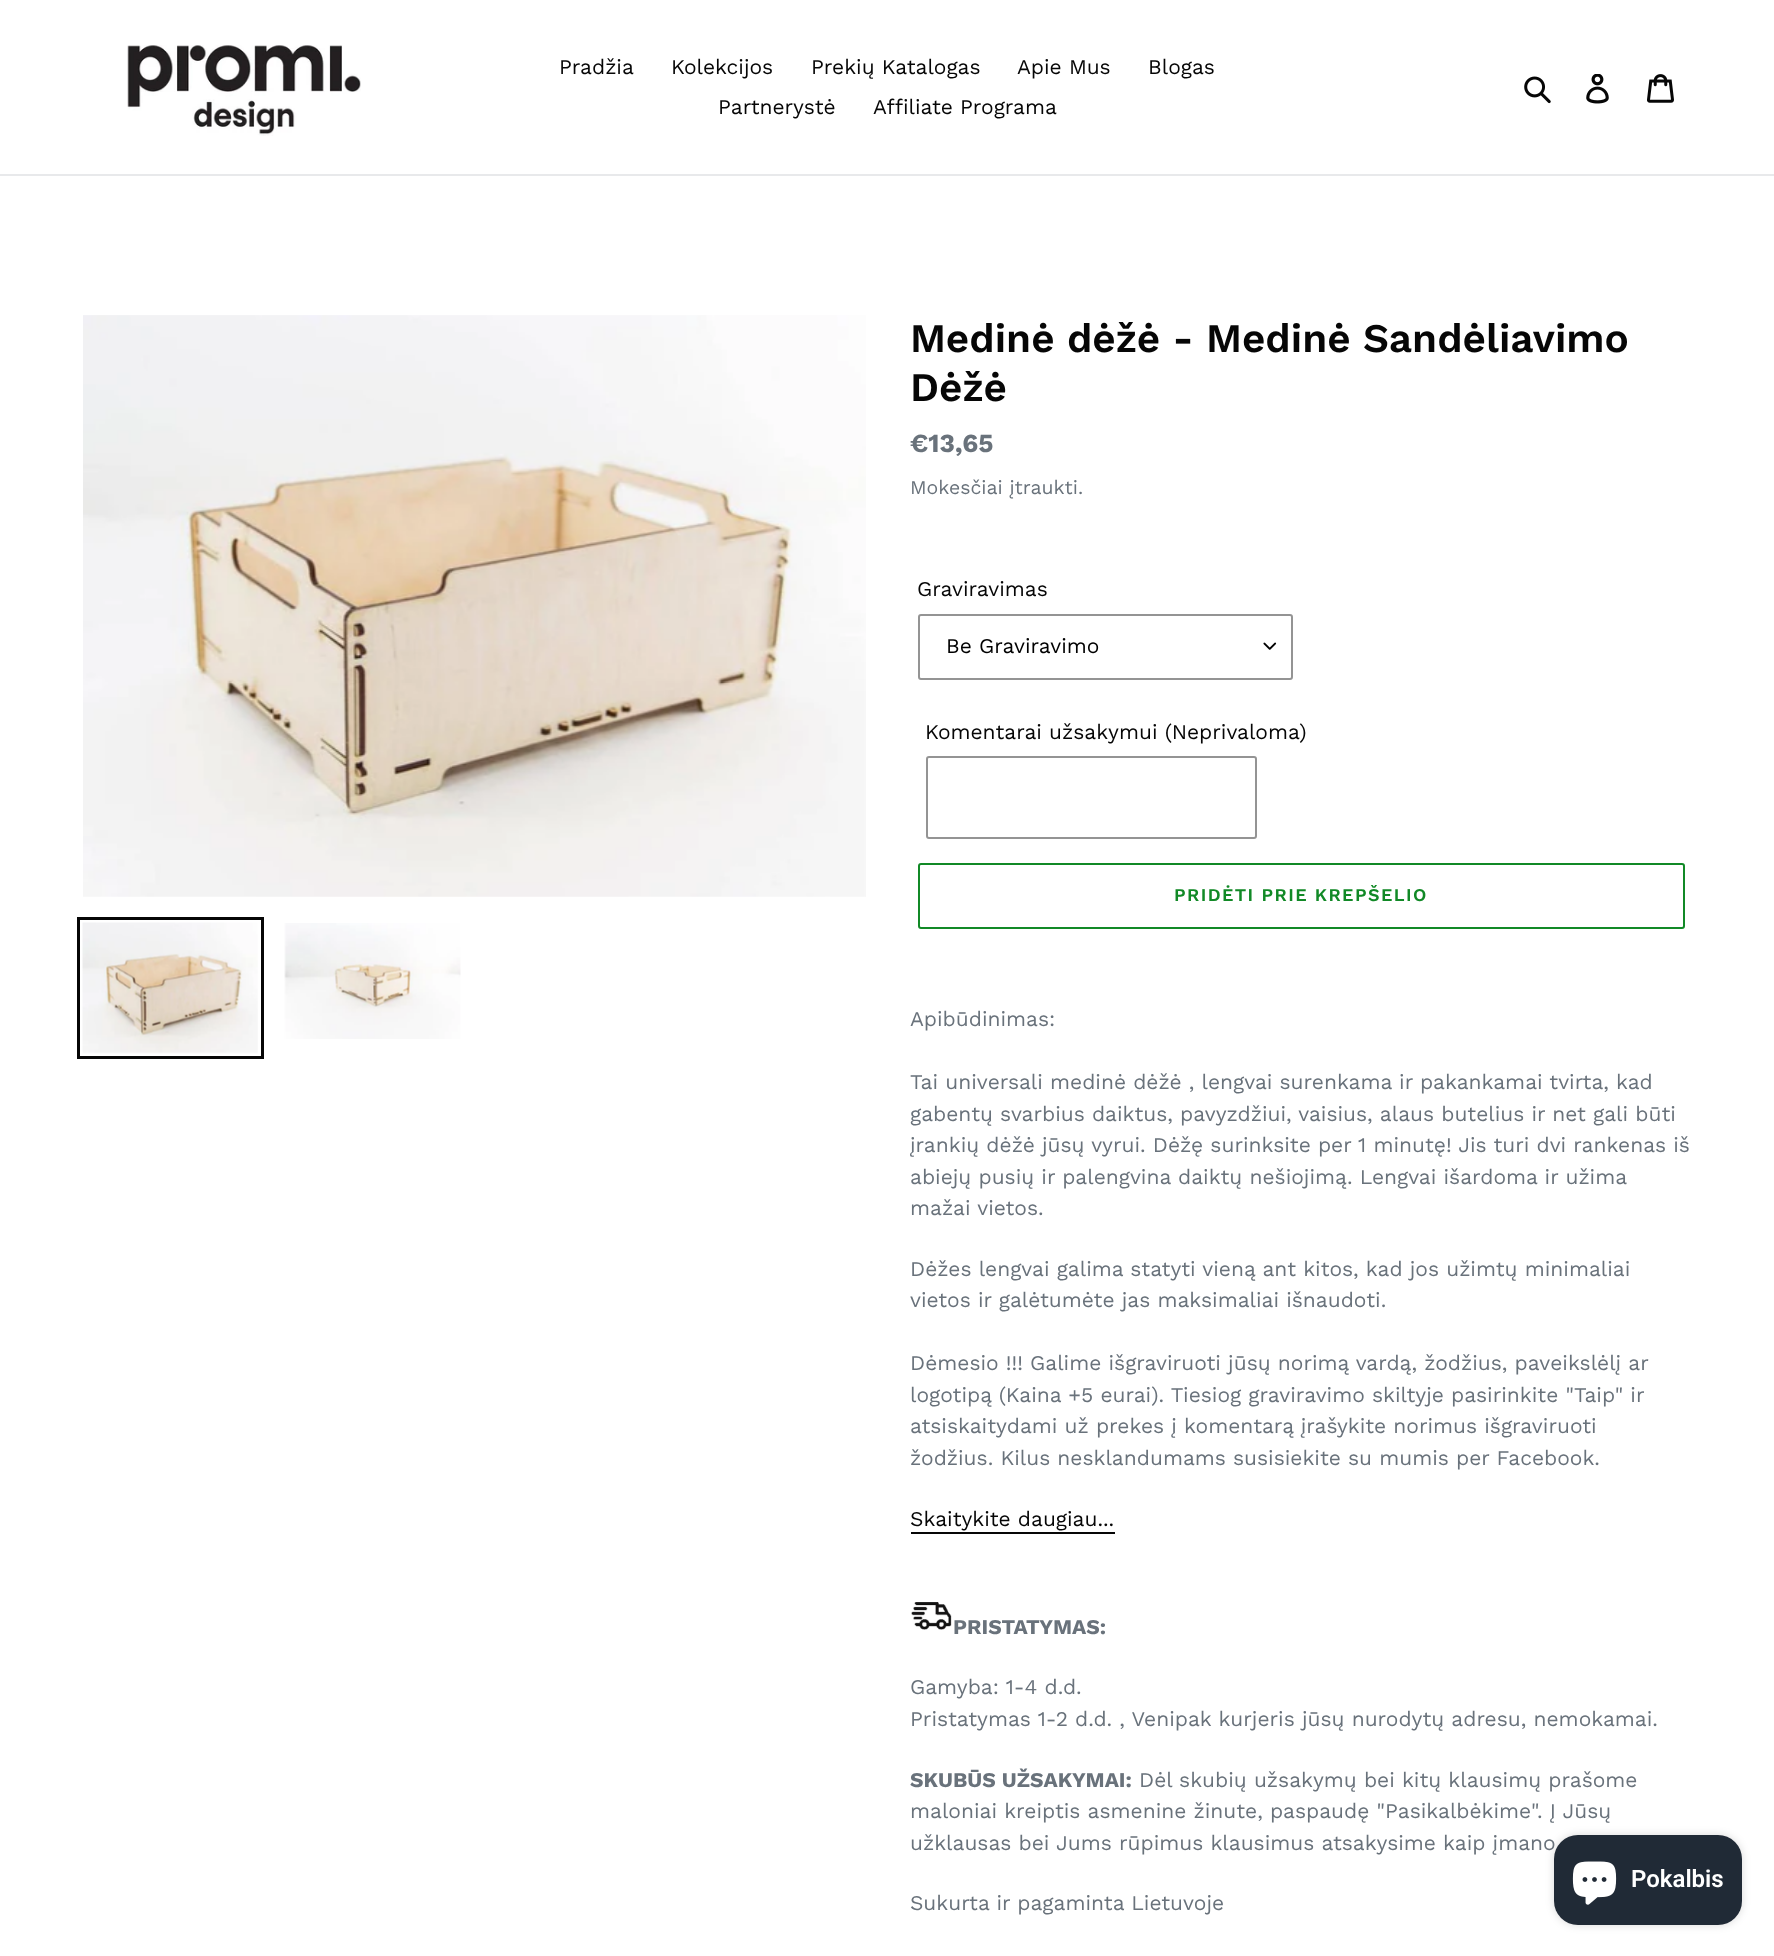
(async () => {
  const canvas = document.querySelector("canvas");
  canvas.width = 1774;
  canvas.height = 1956;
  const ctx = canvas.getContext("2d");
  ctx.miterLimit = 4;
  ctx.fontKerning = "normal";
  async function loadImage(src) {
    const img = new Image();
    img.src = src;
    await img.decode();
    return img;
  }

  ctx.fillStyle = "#ffffff";
  ctx.fillRect(0, 0, 1774, 1956);
  ctx.fillStyle = "#e8e9eb";
  ctx.fillRect(0, 174, 1774, 2);
  ctx.drawImage(await loadImage("img/1.png"), 127, 45, 234, 91);
  ctx.drawImage(await loadImage("img/2.png"), 1524, 76, 27, 28);
  ctx.drawImage(await loadImage("img/3.png"), 1586, 74, 23, 30);
  ctx.drawImage(await loadImage("img/4.png"), 1647, 74, 27, 29);
  ctx.drawImage(await loadImage("img/5.png"), 83, 315, 783, 582);
  ctx.strokeStyle = "#060606";
  ctx.lineWidth = 3;
  ctx.strokeRect(78.5, 918.5, 184, 139);
  ctx.drawImage(await loadImage("img/6.png"), 82, 922, 176, 132);
  ctx.drawImage(await loadImage("img/7.png"), 284, 923, 177, 116);
  ctx.drawImage(await loadImage("img/8.png"), 1263, 642, 14, 8);
  ctx.beginPath();
  ctx.roundRect(919, 615, 373, 64, 2);
  ctx.strokeStyle = "#949494";
  ctx.lineWidth = 2;
  ctx.stroke();
  ctx.beginPath();
  ctx.roundRect(927, 757, 329, 81, 2);
  ctx.stroke();
  ctx.beginPath();
  ctx.roundRect(919, 864, 765, 64, 2);
  ctx.strokeStyle = "#118926";
  ctx.stroke();
  ctx.fillStyle = "#060606";
  ctx.fillRect(911, 1532, 204, 2);
  ctx.drawImage(await loadImage("img/9.png"), 911, 1602, 41, 28);
  ctx.fillStyle = "rgba(0, 0, 0, 0.15)";
  ctx.filter = "blur(4px)";
  ctx.beginPath();
  ctx.roundRect(1554, 1835, 188, 90, 24);
  ctx.fill();
  ctx.filter = "none";
  ctx.font = "21px Work Sans";
  ctx.fillStyle = "#060606";
  for (const [text, x, y] of [
    ["Pradžia", 559, 74],
    ["Kolekcijos", 671, 74],
    ["Prekių Katalogas", 811, 74],
    ["Apie Mus", 1017, 74],
    ["Blogas", 1148, 74],
    ["Partnerystė", 718, 114],
    ["Affiliate Programa", 873, 114],
  ]) {
    ctx.fillText(text, x, y);
  }
  ctx.font = "600 40.5px Work Sans";
  ctx.fillText("Medinė dėžė - Medinė Sandėliavimo", 910, 352);
  ctx.fillText("Dėžė", 910, 401);
  ctx.font = "bold 26px Work Sans";
  ctx.fillStyle = "#69727b";
  ctx.fillText("€13,65", 910, 452);
  ctx.font = "19.5px Work Sans";
  ctx.fillText("Mokesčiai įtraukti.", 910, 494);
  ctx.font = "21px Work Sans";
  ctx.fillStyle = "#060606";
  ctx.fillText("Graviravimas", 917, 596);
  ctx.fillStyle = "#000000";
  ctx.fillText("Be Graviravimo", 946, 653);
  ctx.fillStyle = "#060606";
  ctx.fillText("Komentarai užsakymui (Neprivaloma)", 925, 739);
  ctx.letterSpacing = "1.4px";
  ctx.font = "600 18px Work Sans";
  ctx.fillStyle = "#118926";
  ctx.fillText("PRIDĖTI PRIE KREPŠELIO", 1174, 901);
  ctx.letterSpacing = "0px";
  ctx.font = "21px Work Sans";
  ctx.fillStyle = "#69727b";
  for (const [text, x, y] of [
    ["Apibūdinimas:", 910, 1026],
    ["Tai universali medinė dėžė , lengvai surenkama ir pakankamai tvirta, kad", 910, 1089],
    ["gabentų svarbius daiktus, pavyzdžiui, vaisius, alaus butelius ir net gali būti", 910, 1121],
    ["įrankių dėžė jūsų vyrui. Dėžę surinksite per 1 minutę! Jis turi dvi rankenas iš", 910, 1152],
    ["abiejų pusių ir palengvina daiktų nešiojimą. Lengvai išardoma ir užima", 910, 1184],
    ["mažai vietos.", 910, 1215],
    ["Dėžes lengvai galima statyti vieną ant kitos, kad jos užimtų minimaliai", 910, 1276],
    ["vietos ir galėtumėte jas maksimaliai išnaudoti.", 910, 1307],
    ["Dėmesio !!! Galime išgraviruoti jūsų norimą vardą, žodžius, paveikslėlį ar", 910, 1370],
    ["logotipą (Kaina +5 eurai). Tiesiog graviravimo skiltyje pasirinkite \"Taip\" ir", 910, 1402],
    ["atsiskaitydami už prekes į komentarą įrašykite norimus išgraviruoti", 910, 1433],
    ["žodžius. Kilus nesklandumams susisiekite su mumis per Facebook.", 910, 1465],
  ]) {
    ctx.fillText(text, x, y);
  }
  ctx.fillStyle = "#060606";
  ctx.fillText("Skaitykite daugiau...", 910, 1526);
  ctx.font = "bold 21px Work Sans";
  ctx.fillStyle = "#69727b";
  ctx.fillText("PRISTATYMAS:", 953, 1634);
  ctx.font = "21px Work Sans";
  ctx.fillText("Gamyba: 1-4 d.d.", 910, 1694);
  ctx.fillText("Pristatymas 1-2 d.d. , Venipak kurjeris jūsų nurodytų adresu, nemokamai.", 910, 1726);
  ctx.font = "bold 21px Work Sans";
  ctx.fillText("SKUBŪS UŽSAKYMAI:", 910, 1787);
  ctx.font = "21px Work Sans";
  for (const [text, x, y] of [
    ["Dėl skubių užsakymų bei kitų klausimų prašome", 1139, 1787],
    ["maloniai kreiptis asmenine žinute, paspaudę \"Pasikalbėkime\". Į Jūsų", 910, 1818],
    ["užklausas bei Jums rūpimus klausimus atsakysime kaip įmano", 910, 1850],
    ["Sukurta ir pagaminta Lietuvoje", 910, 1910],
  ]) {
    ctx.fillText(text, x, y);
  }
  ctx.fillStyle = "#202a36";
  ctx.beginPath();
  ctx.roundRect(1554, 1835, 188, 90, 24);
  ctx.fill();
  ctx.drawImage(await loadImage("img/10.png"), 1572, 1861, 45, 44);
  ctx.font = "600 24px Roboto";
  ctx.fillStyle = "#ffffff";
  ctx.fillText("Pokalbis", 1631, 1887);
})();
